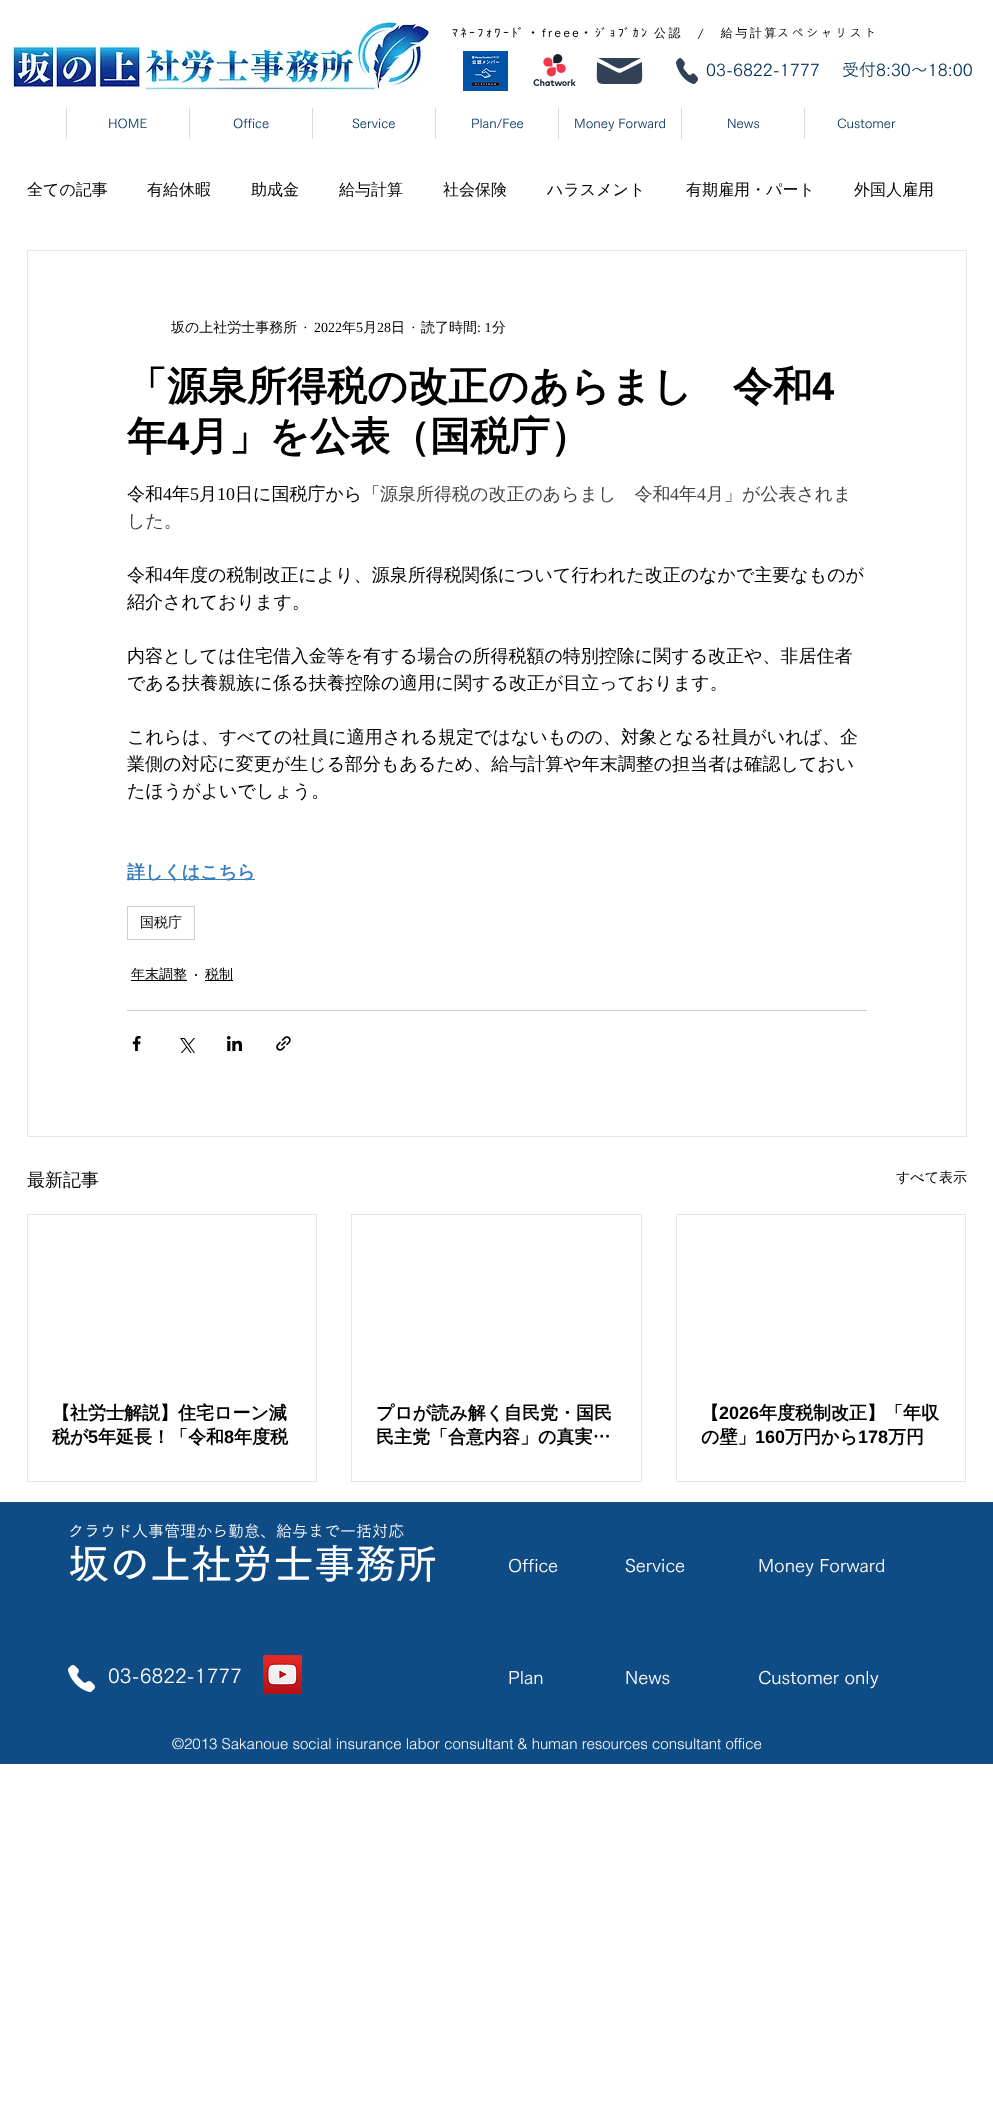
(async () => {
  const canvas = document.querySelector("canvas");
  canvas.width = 993;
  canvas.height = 2104;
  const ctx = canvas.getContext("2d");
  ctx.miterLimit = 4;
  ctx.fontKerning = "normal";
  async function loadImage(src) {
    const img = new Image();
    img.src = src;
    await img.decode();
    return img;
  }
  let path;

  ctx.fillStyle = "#ffffff";
  ctx.fillRect(0, 0, 993, 2104);
  ctx.drawImage(await loadImage("img/1.png"), 7, 20, 424, 71);
  ctx.drawImage(await loadImage("img/2.png"), 463, 51, 45, 40);
  ctx.drawImage(await loadImage("img/3.png"), 533, 53, 43, 34);
  ctx.fillStyle = "#324158";
  path = new Path2D("M622 72C621 73 618 73 617 72L597 62C597 87 593 84 620 84C646 84 642 87 642 62Z");
  ctx.fill(path);
  path = new Path2D("M598 58C627 72 612 72 641 58Z");
  ctx.fill(path);
  ctx.drawImage(await loadImage("img/4.png"), 676, 58, 22, 26);
  for (const [x, y, w, h, color] of [
    [66, 108, 1, 31, "#dadada"],
    [189, 108, 1, 31, "#dadada"],
    [312, 108, 1, 31, "#dadada"],
    [435, 108, 1, 31, "#dadada"],
    [558, 108, 1, 31, "#dadada"],
    [681, 108, 1, 31, "#dadada"],
    [804, 108, 1, 31, "#dadada"],
  ]) {
    ctx.fillStyle = color;
    ctx.fillRect(x, y, w, h);
  }
  ctx.strokeStyle = "#e6e6e6";
  ctx.strokeRect(27.5, 250.5, 939, 886);
  ctx.fillStyle = "#377dbd";
  ctx.fillRect(127, 879, 128, 1);
  ctx.strokeStyle = "#cccccc";
  ctx.strokeRect(127.5, 906.5, 67, 33);
  for (const [x, y, w, h, color] of [
    [131, 980, 56, 1, "#000000"],
    [205, 980, 28, 1, "#000000"],
    [127, 1010, 740, 1, "#cccccc"],
  ]) {
    ctx.fillStyle = color;
    ctx.fillRect(x, y, w, h);
  }
  ctx.drawImage(await loadImage("img/5.png"), 132, 1036, 9, 15);
  ctx.drawImage(await loadImage("img/6.png"), 180, 1038, 15, 15);
  ctx.drawImage(await loadImage("img/7.png"), 227, 1036, 15, 15);
  ctx.drawImage(await loadImage("img/8.png"), 276, 1036, 15, 15);
  ctx.strokeStyle = "#e6e6e6";
  ctx.strokeRect(27.5, 1214.5, 289, 267);
  ctx.strokeRect(351.5, 1214.5, 290, 267);
  ctx.strokeRect(676.5, 1214.5, 289, 267);
  ctx.fillStyle = "#0f4c85";
  ctx.fillRect(0, 1502, 993, 262);
  ctx.drawImage(await loadImage("img/9.png"), 68, 1665, 27, 27);
  ctx.drawImage(await loadImage("img/10.png"), 263, 1655, 39, 39);
  ctx.letterSpacing = "2.5px";
  ctx.font = "12px IPAPGothic";
  ctx.fillStyle = "#000000";
  ctx.fillText("ﾏﾈｰﾌｫﾜｰﾄﾞ", 452, 37);
  ctx.font = "12px 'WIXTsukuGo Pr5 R'";
  ctx.fillText("・", 527, 37);
  ctx.font = "500 12px WenQuanYi Zen Hei";
  ctx.fillText("freee", 542, 37);
  ctx.font = "12px 'WIXTsukuGo Pr5 R'";
  ctx.fillText("・", 580, 37);
  ctx.font = "12px IPAPGothic";
  ctx.fillText("ｼﾞｮﾌﾞｶﾝ", 595, 37);
  ctx.font = "500 12px WenQuanYi Zen Hei";
  ctx.fillText("公認　/　給与計算", 654, 37);
  ctx.font = "12px 'WIXTsukuGo Pr5 R'";
  ctx.fillText("スペシャリスト", 777, 37);
  ctx.letterSpacing = "0px";
  ctx.font = "17px 'WIXTsukuGo Pr5 R'";
  ctx.fillStyle = "#00305b";
  ctx.fillText("03-6822-1777", 706, 76);
  ctx.fillText("受付8:30～18:00", 842, 76);
  ctx.font = "13px 'WIXTsukuGo Pr5 R'";
  for (const [text, x, y] of [
    ["HOME", 108, 128],
    ["Office", 233, 128],
    ["Service", 352, 128],
    ["Plan/Fee", 471, 128],
    ["Money Forward", 574, 128],
    ["News", 727, 128],
    ["Customer", 837, 128],
  ]) {
    ctx.fillText(text, x, y);
  }
  ctx.font = "500 16px WenQuanYi Zen Hei";
  ctx.fillStyle = "#000000";
  for (const [text, x, y] of [
    ["全ての記事", 27, 195],
    ["有給休暇", 147, 195],
    ["助成金", 251, 195],
    ["給与計算", 339, 195],
    ["社会保険", 443, 195],
    ["ハラスメント", 547, 195],
    ["有期雇用・パート", 686, 195],
    ["外国人雇用", 854, 195],
  ]) {
    ctx.fillText(text, x, y);
  }
  ctx.font = "500 14px WenQuanYi Zen Hei";
  ctx.fillText("坂の上社労士事務所", 171, 332);
  ctx.font = "14px Liberation Serif";
  ctx.fillText("·", 303, 332);
  ctx.fillText("2022", 314, 332);
  ctx.font = "500 14px WenQuanYi Zen Hei";
  ctx.fillText("年", 342, 332);
  ctx.font = "14px Liberation Serif";
  ctx.fillText("5", 356, 332);
  ctx.font = "500 14px WenQuanYi Zen Hei";
  ctx.fillText("月", 363, 332);
  ctx.font = "14px Liberation Serif";
  ctx.fillText("28", 377, 332);
  ctx.font = "500 14px WenQuanYi Zen Hei";
  ctx.fillText("日", 391, 332);
  ctx.font = "14px Liberation Serif";
  ctx.fillText("·", 411, 332);
  ctx.font = "500 14px WenQuanYi Zen Hei";
  ctx.fillText("読了時間", 421, 332);
  ctx.font = "14px Liberation Serif";
  ctx.fillText(": 1", 477, 332);
  ctx.font = "500 14px WenQuanYi Zen Hei";
  ctx.fillText("分", 492, 332);
  ctx.font = "bold 40px WenQuanYi Zen Hei";
  ctx.fillText("「源泉所得税の改正のあらまし　令和", 127, 400);
  ctx.font = "bold 40px Liberation Sans";
  ctx.fillText("4", 812, 400);
  ctx.font = "bold 40px WenQuanYi Zen Hei";
  ctx.fillText("年", 127, 450);
  ctx.font = "bold 40px Liberation Sans";
  ctx.fillText("4", 167, 450);
  ctx.font = "bold 40px WenQuanYi Zen Hei";
  ctx.fillText("月」を公表（国税庁）", 189, 450);
  ctx.font = "500 18px WenQuanYi Zen Hei";
  ctx.fillText("令和", 127, 500);
  ctx.font = "18px Liberation Serif";
  ctx.fillText("4", 163, 500);
  ctx.font = "500 18px WenQuanYi Zen Hei";
  ctx.fillText("年", 172, 500);
  ctx.font = "18px Liberation Serif";
  ctx.fillText("5", 190, 500);
  ctx.font = "500 18px WenQuanYi Zen Hei";
  ctx.fillText("月", 199, 500);
  ctx.font = "18px Liberation Serif";
  ctx.fillText("10", 217, 500);
  ctx.font = "500 18px WenQuanYi Zen Hei";
  ctx.fillText("日に国税庁から「", 235, 500);
  ctx.fillStyle = "#444444";
  ctx.fillText("源泉所得税の改正のあらまし　令和", 380, 500);
  ctx.font = "18px Liberation Serif";
  ctx.fillText("4", 670, 500);
  ctx.font = "500 18px WenQuanYi Zen Hei";
  ctx.fillText("年", 679, 500);
  ctx.font = "18px Liberation Serif";
  ctx.fillText("4", 697, 500);
  ctx.font = "500 18px WenQuanYi Zen Hei";
  ctx.fillText("月」が公表されま", 706, 500);
  ctx.fillText("した。", 127, 527);
  ctx.fillStyle = "#000000";
  ctx.fillText("令和", 127, 581);
  ctx.font = "18px Liberation Serif";
  ctx.fillText("4", 163, 581);
  ctx.font = "500 18px WenQuanYi Zen Hei";
  for (const [text, x, y] of [
    ["年度の税制改正により、源泉所得税関係について行われた改正のなかで主要なものが", 172, 581],
    ["紹介されております。", 127, 608],
    ["内容としては住宅借入金等を有する場合の所得税額の特別控除に関する改正や、非居住者", 127, 662],
    ["である扶養親族に係る扶養控除の適用に関する改正が目立っております。", 127, 689],
    ["これらは、すべての社員に適用される規定ではないものの、対象となる社員がいれば、企", 127, 743],
    ["業側の対応に変更が生じる部分もあるため、給与計算や年末調整の担当者は確認しておい", 127, 770],
    ["たほうがよいでしょう。", 127, 797],
  ]) {
    ctx.fillText(text, x, y);
  }
  ctx.font = "bold 18px WenQuanYi Zen Hei";
  ctx.fillStyle = "#377dbd";
  ctx.fillText("詳しくはこちら", 127, 878);
  ctx.font = "500 14px WenQuanYi Zen Hei";
  ctx.fillStyle = "#000000";
  ctx.fillText("国税庁", 140, 927);
  ctx.fillText("年末調整", 131, 979);
  ctx.font = "18px Liberation Serif";
  ctx.fillText("·", 193, 981);
  ctx.font = "500 14px WenQuanYi Zen Hei";
  ctx.fillText("税制", 205, 979);
  ctx.font = "500 18px WenQuanYi Zen Hei";
  ctx.fillText("最新記事", 27, 1186);
  ctx.font = "500 14px WenQuanYi Zen Hei";
  ctx.fillText("すべて表示", 896, 1182);
  ctx.font = "bold 18px WenQuanYi Zen Hei";
  ctx.fillText("【社労士解説】住宅ローン減", 52, 1419);
  ctx.fillText("税が", 52, 1443);
  ctx.font = "bold 18px Liberation Sans";
  ctx.fillText("5", 88, 1443);
  ctx.font = "bold 18px WenQuanYi Zen Hei";
  ctx.fillText("年延長！「令和", 98, 1443);
  ctx.font = "bold 18px Liberation Sans";
  ctx.fillText("8", 224, 1443);
  ctx.font = "bold 18px WenQuanYi Zen Hei";
  for (const [text, x, y] of [
    ["年度税", 234, 1443],
    ["プロが読み解く自民党・国民", 376, 1419],
    ["民主党「合意内容」の真実…", 376, 1443],
    ["【", 701, 1419],
  ]) {
    ctx.fillText(text, x, y);
  }
  ctx.font = "bold 18px Liberation Sans";
  ctx.fillText("2026", 719, 1419);
  ctx.font = "bold 18px WenQuanYi Zen Hei";
  ctx.fillText("年度税制改正】「年収", 759, 1419);
  ctx.fillText("の壁」", 701, 1443);
  ctx.font = "bold 18px Liberation Sans";
  ctx.fillText("160", 755, 1443);
  ctx.font = "bold 18px WenQuanYi Zen Hei";
  ctx.fillText("万円から", 785, 1443);
  ctx.font = "bold 18px Liberation Sans";
  ctx.fillText("178", 858, 1443);
  ctx.font = "bold 18px WenQuanYi Zen Hei";
  ctx.fillText("万円", 888, 1443);
  ctx.font = "16px 'WIXTsukuGo Pr5 R'";
  ctx.fillStyle = "#ffffff";
  ctx.fillText("クラウド人事管理から勤怠、給与まで一括対応", 68, 1537);
  ctx.font = "600 41px 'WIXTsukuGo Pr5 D'";
  ctx.fillText("坂の上社労士事務所", 68, 1579);
  ctx.font = "18px 'WIXTsukuGo Pr5 R'";
  for (const [text, x, y] of [
    ["Office", 508, 1572],
    ["Service", 625, 1572],
    ["Money Forward", 758, 1572],
  ]) {
    ctx.fillText(text, x, y);
  }
  ctx.font = "20px 'WIXTsukuGo Pr5 R'";
  ctx.fillText("03-6822-1777", 108, 1683);
  ctx.font = "18px 'WIXTsukuGo Pr5 R'";
  for (const [text, x, y] of [
    ["Plan", 508, 1684],
    ["News", 625, 1684],
    ["Customer only", 758, 1684],
  ]) {
    ctx.fillText(text, x, y);
  }
  ctx.font = "300 15px helvetica";
  ctx.fillText("©2013 Sakanoue social insurance labor consultant & human resources consultant office", 172, 1749);
})();
